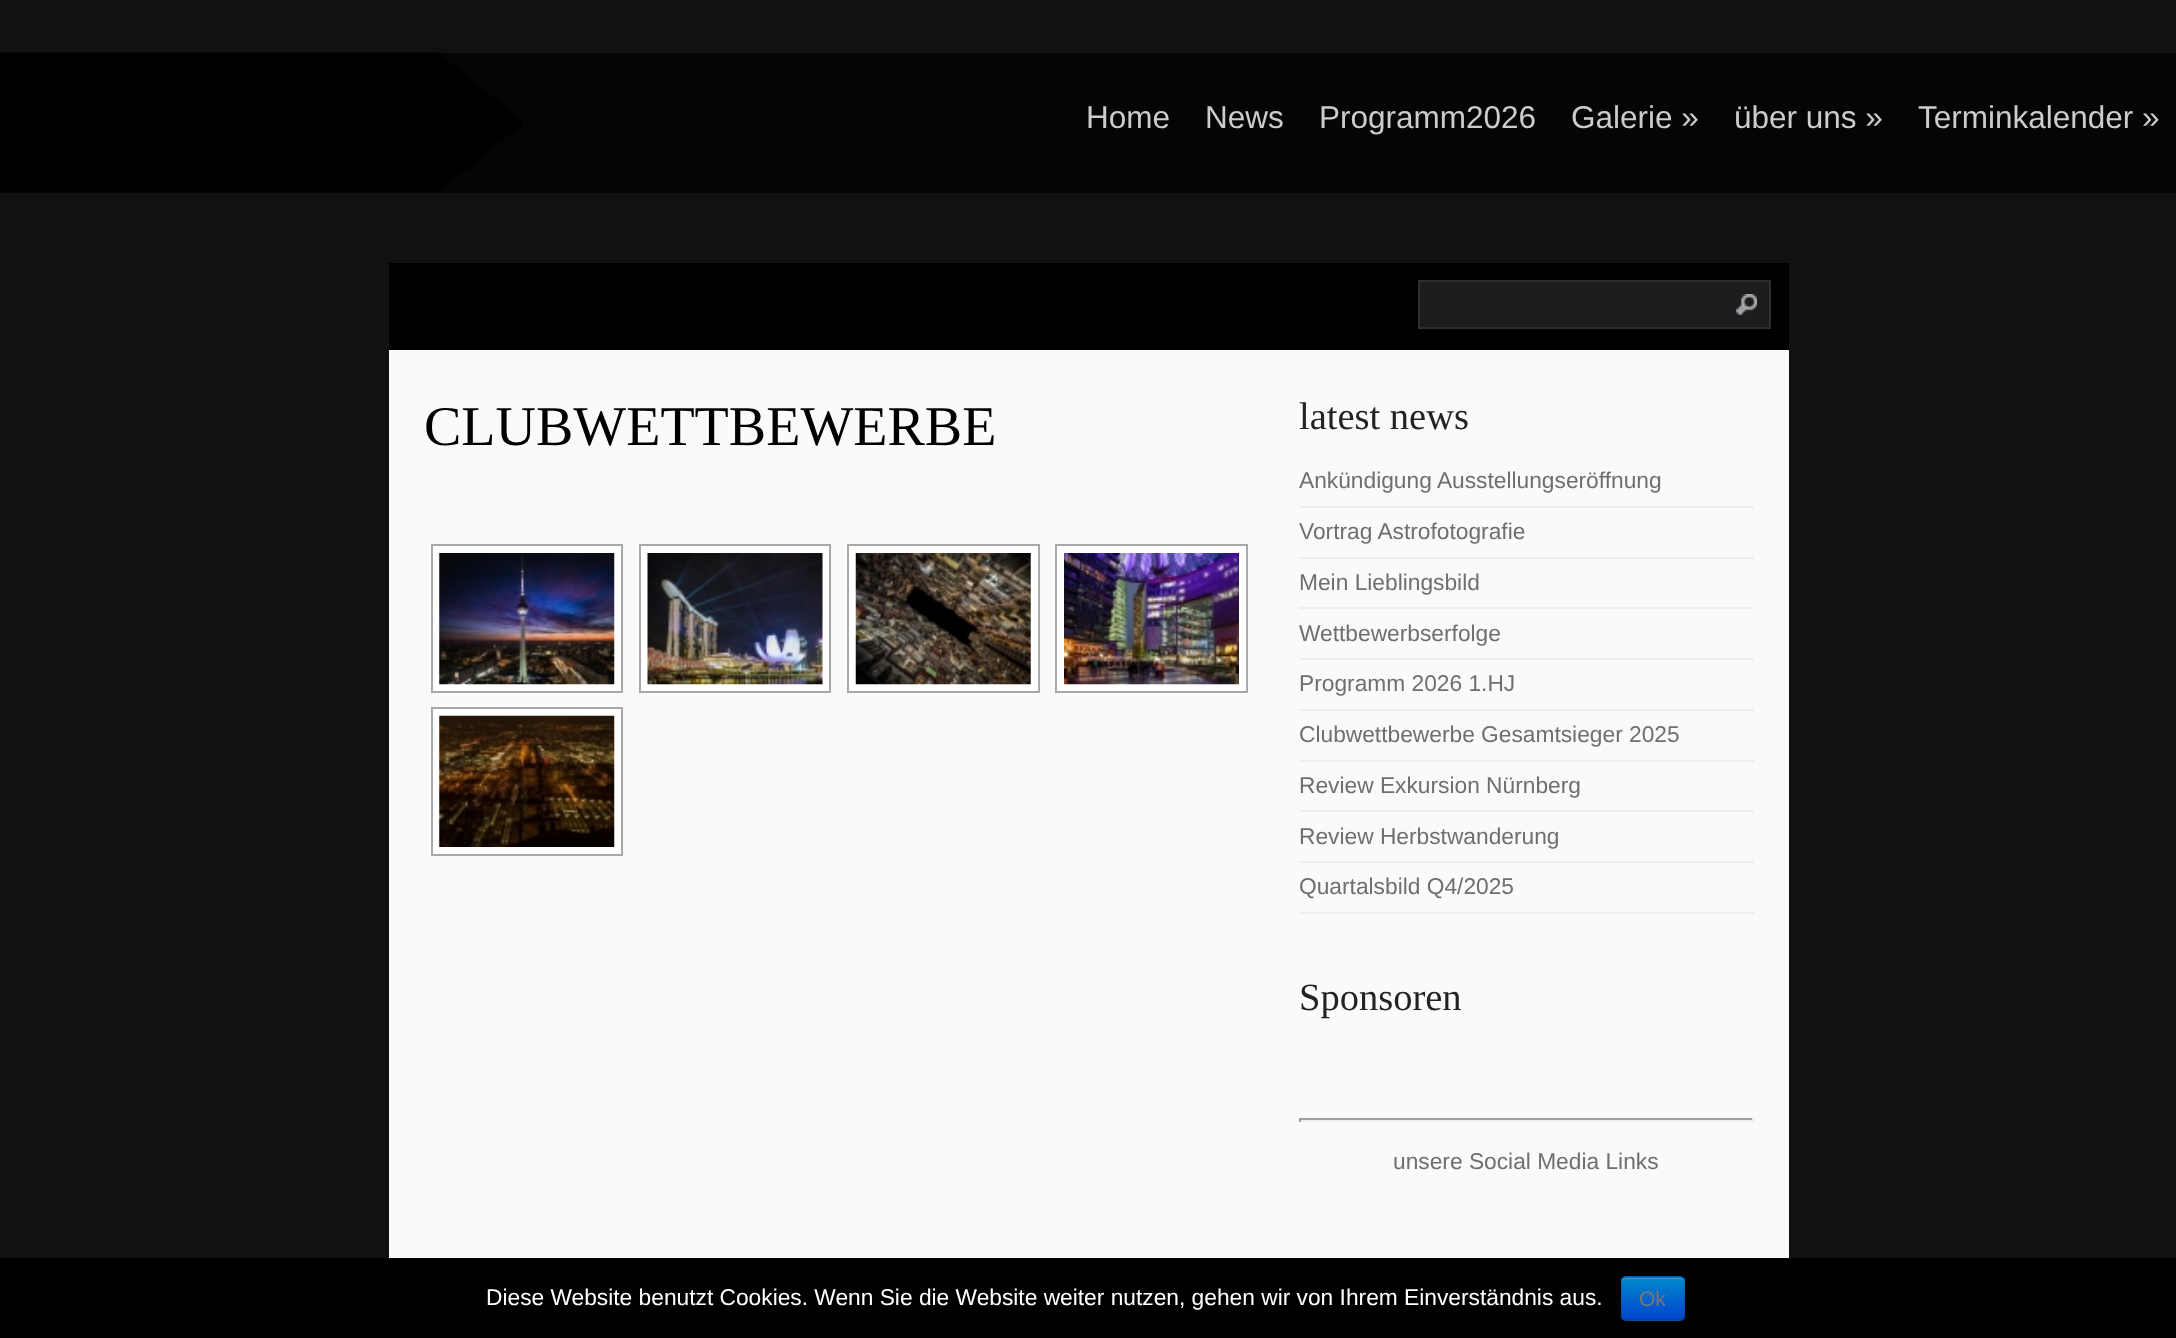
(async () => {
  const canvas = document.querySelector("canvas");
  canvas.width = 2176;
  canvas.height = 1338;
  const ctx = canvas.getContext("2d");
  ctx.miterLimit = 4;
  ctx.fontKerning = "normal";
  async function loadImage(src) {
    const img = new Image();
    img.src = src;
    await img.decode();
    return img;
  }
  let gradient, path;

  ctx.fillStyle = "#111111";
  ctx.fillRect(0, 0, 2176, 1338);
  ctx.fillStyle = "#050505";
  ctx.fillRect(0, 53, 2176, 140);
  ctx.drawImage(await loadImage("img/1.png"), 0, 52, 523, 140);
  ctx.fillStyle = "#fafafa";
  ctx.fillRect(389, 350, 1400, 908);
  ctx.fillStyle = "#000000";
  ctx.fillRect(389, 263, 1400, 87);
  ctx.fillStyle = "#1d1d1d";
  ctx.beginPath();
  ctx.rect(1419, 281, 351, 47);
  ctx.fill();
  ctx.strokeStyle = "#2e2e2e";
  ctx.lineWidth = 2;
  ctx.stroke();
  ctx.drawImage(await loadImage("img/2.png"), 1736, 294, 21, 21);
  ctx.fillStyle = "#ffffff";
  ctx.beginPath();
  ctx.rect(432, 545, 190, 147);
  ctx.fill();
  ctx.strokeStyle = "#a9a9a9";
  ctx.stroke();
  ctx.drawImage(await loadImage("img/3.png"), 439, 553, 176, 132);
  ctx.beginPath();
  ctx.rect(640, 545, 190, 147);
  ctx.fill();
  ctx.stroke();
  ctx.drawImage(await loadImage("img/4.png"), 647, 553, 176, 132);
  ctx.beginPath();
  ctx.rect(848, 545, 191, 147);
  ctx.fill();
  ctx.stroke();
  ctx.drawImage(await loadImage("img/5.png"), 855, 553, 176, 132);
  ctx.beginPath();
  ctx.rect(1056, 545, 191, 147);
  ctx.fill();
  ctx.stroke();
  ctx.drawImage(await loadImage("img/6.png"), 1064, 553, 175, 132);
  ctx.beginPath();
  ctx.rect(432, 708, 190, 147);
  ctx.fill();
  ctx.stroke();
  ctx.drawImage(await loadImage("img/7.png"), 439, 715, 176, 132);
  for (const [x, y, w, h, color] of [
    [1299, 506, 455, 2, "#eeeeee"],
    [1299, 557, 455, 2, "#eeeeee"],
    [1299, 607, 455, 2, "#eeeeee"],
    [1299, 658, 455, 2, "#eeeeee"],
    [1299, 709, 455, 2, "#eeeeee"],
    [1299, 760, 455, 2, "#eeeeee"],
    [1299, 810, 455, 2, "#eeeeee"],
    [1299, 861, 455, 2, "#eeeeee"],
    [1299, 912, 455, 2, "#eeeeee"],
    [1299, 1118, 455, 2, "#9f9f9f"],
    [1752, 1118, 2, 4, "#eeeeee"],
    [1299, 1120, 455, 2, "#eeeeee"],
    [1299, 1118, 2, 4, "#9f9f9f"],
    [0, 1258, 2176, 80, "#000000"],
  ]) {
    ctx.fillStyle = color;
    ctx.fillRect(x, y, w, h);
  }
  ctx.fillStyle = "#006dcc";
  ctx.beginPath();
  ctx.roundRect(1621, 1276, 64, 45, 5);
  ctx.fill();
  ctx.save();
  ctx.beginPath();
  ctx.roundRect(1621, 1276, 64, 45, 5);
  ctx.clip();
  gradient = ctx.createLinearGradient(1653, 1278, 1653, 1320);
  gradient.addColorStop(0, "#0088cc");
  gradient.addColorStop(1, "#0044cc");
  ctx.fillStyle = gradient;
  ctx.fillRect(1621, 1278, 64, 42);
  ctx.restore();
  ctx.fillStyle = "#339fd6";
  path = new Path2D("M1626 1279H1680C1682 1279 1684 1281 1684 1283C1684 1276 1676 1278 1671 1278H1635C1630 1278 1622 1276 1622 1283C1622 1281 1624 1279 1626 1279Z");
  ctx.fill(path);
  path = new Path2D("M1683 1319C1682.5 1320 1681 1320.5 1680 1320.5H1626C1624.5 1320.5 1623.5 1320 1622.5 1319");
  ctx.strokeStyle = "rgba(0, 0, 0, 0.25)";
  ctx.lineWidth = 1.8;
  ctx.stroke(path);
  path = new Path2D("M1622.5 1319C1622 1318.5 1621.5 1317 1621.5 1316V1281C1621.5 1280 1622 1278.5 1622.5 1278C1623.5 1277 1624.5 1276.5 1626 1276.5H1680C1681 1276.5 1682.5 1277 1683 1278C1684 1278.5 1684.5 1280 1684.5 1281V1316C1684.5 1317 1684 1318.5 1683 1319");
  ctx.strokeStyle = "rgba(0, 0, 0, 0.1)";
  ctx.stroke(path);
  ctx.font = "31.5px Liberation Sans";
  ctx.fillStyle = "#cccccc";
  for (const [text, x, y] of [
    ["Home", 1086, 128],
    ["News", 1205, 128],
    ["Programm2026", 1319, 128],
    ["Galerie »", 1571, 128],
    ["über uns »", 1734, 128],
    ["Terminkalender »", 1918, 128],
  ]) {
    ctx.fillText(text, x, y);
  }
  ctx.font = "56px Liberation Serif";
  ctx.fillStyle = "#000000";
  ctx.fillText("CLUBWETTBEWERBE", 424, 445);
  ctx.font = "38.5px Liberation Serif";
  ctx.fillStyle = "#222222";
  ctx.fillText("latest news", 1299, 429);
  ctx.font = "22.75px Liberation Sans";
  ctx.fillStyle = "#6f6f6f";
  for (const [text, x, y] of [
    ["Ankündigung Ausstellungseröffnung", 1299, 488],
    ["Vortrag Astrofotografie", 1299, 539],
    ["Mein Lieblingsbild", 1299, 590],
    ["Wettbewerbserfolge", 1299, 641],
    ["Programm 2026 1.HJ", 1299, 691],
    ["Clubwettbewerbe Gesamtsieger 2025", 1299, 742],
    ["Review Exkursion Nürnberg", 1299, 793],
    ["Review Herbstwanderung", 1299, 844],
    ["Quartalsbild Q4/2025", 1299, 894],
  ]) {
    ctx.fillText(text, x, y);
  }
  ctx.font = "38.5px Liberation Serif";
  ctx.fillStyle = "#222222";
  ctx.fillText("Sponsoren", 1299, 1010);
  ctx.font = "22.75px Liberation Sans";
  ctx.fillStyle = "#6f6f6f";
  ctx.fillText("unsere Social Media Links", 1393, 1169);
  ctx.fillStyle = "#ffffff";
  ctx.fillText("Diese Website benutzt Cookies. Wenn Sie die Website weiter nutzen, gehen wir von Ihrem Einverständnis aus.", 486, 1305);
  ctx.font = "21px Liberation Sans";
  ctx.fillStyle = "#777777";
  ctx.fillText("Ok", 1639, 1306);
})();
